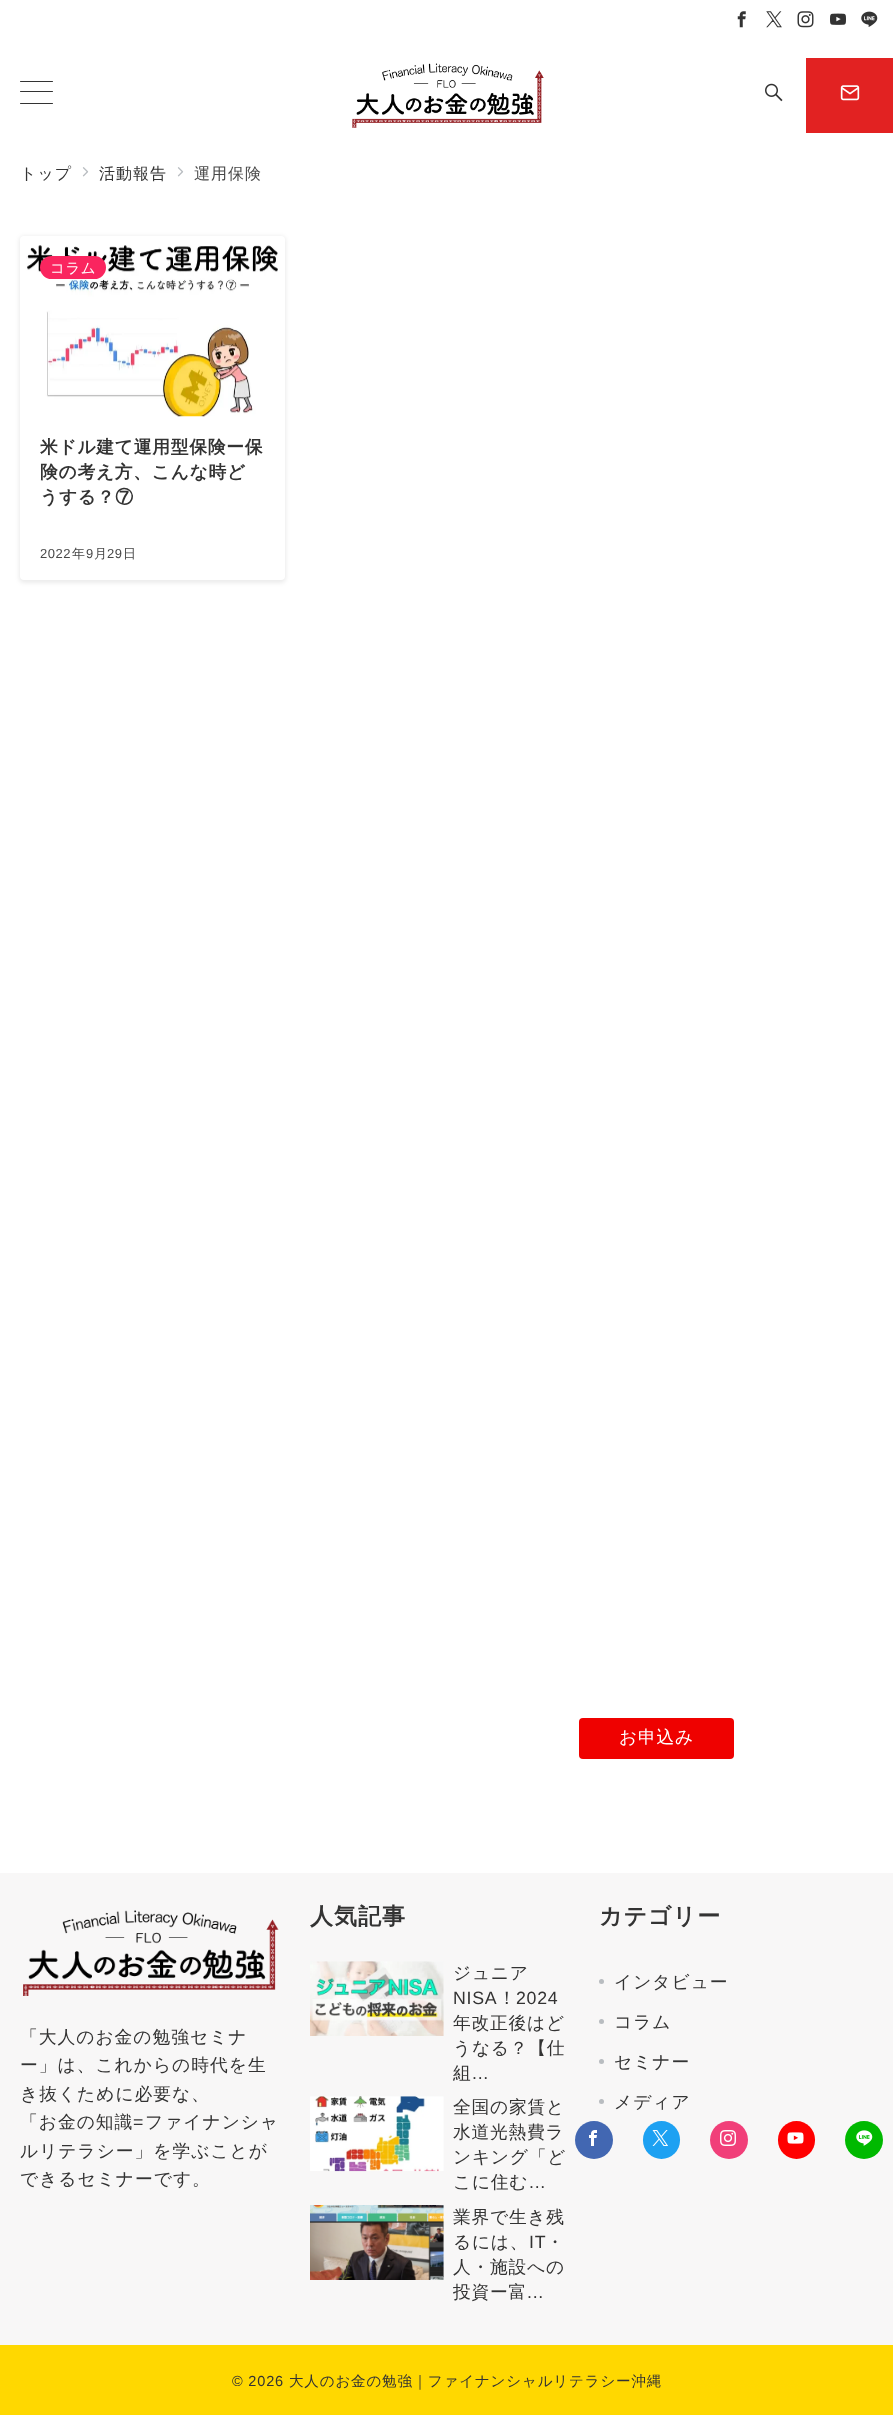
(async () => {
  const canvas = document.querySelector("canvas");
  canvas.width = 893;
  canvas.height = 2415;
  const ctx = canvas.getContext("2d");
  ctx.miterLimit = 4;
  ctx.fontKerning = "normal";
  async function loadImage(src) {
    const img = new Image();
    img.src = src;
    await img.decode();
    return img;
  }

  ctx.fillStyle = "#ffffff";
  ctx.fillRect(0, 0, 893, 2415);
  ctx.drawImage(await loadImage("img/1.png"), 737, 11, 9, 17);
  ctx.drawImage(await loadImage("img/2.png"), 766, 11, 16, 17);
  ctx.drawImage(await loadImage("img/3.png"), 797, 11, 17, 17);
  ctx.drawImage(await loadImage("img/4.png"), 830, 13, 16, 12);
  ctx.drawImage(await loadImage("img/5.png"), 861, 11, 17, 16);
  ctx.fillStyle = "#333333";
  ctx.beginPath();
  ctx.roundRect(20, 81, 33, 1, 0.5);
  ctx.fill();
  ctx.beginPath();
  ctx.roundRect(20, 91, 33, 1, 0.5);
  ctx.fill();
  ctx.beginPath();
  ctx.roundRect(20, 103, 33, 1, 0.5);
  ctx.fill();
  ctx.drawImage(await loadImage("img/6.png"), 352, 63, 192, 65);
  ctx.drawImage(await loadImage("img/7.png"), 765, 83, 18, 19);
  ctx.fillStyle = "#e22222";
  ctx.fillRect(806, 58, 87, 75);
  ctx.drawImage(await loadImage("img/8.png"), 840, 85, 20, 16);
  ctx.drawImage(await loadImage("img/9.png"), 82, 167, 7, 10);
  ctx.drawImage(await loadImage("img/9.png"), 177, 167, 7, 10);
  ctx.fillStyle = "rgba(0, 0, 0, 0.08)";
  ctx.filter = "blur(2px)";
  ctx.beginPath();
  ctx.roundRect(19, 236, 267, 347, 5);
  ctx.fill();
  ctx.filter = "none";
  ctx.fillStyle = "#ffffff";
  ctx.beginPath();
  ctx.roundRect(20, 236, 265, 344, 4);
  ctx.fill();
  ctx.drawImage(await loadImage("img/10.png"), 26, 245, 252, 172);
  ctx.fillStyle = "#fa255f";
  ctx.beginPath();
  ctx.roundRect(40, 256, 66, 23, 11.5);
  ctx.fill();
  ctx.fillStyle = "#ef0100";
  ctx.beginPath();
  ctx.roundRect(579, 1718, 155, 41, 4);
  ctx.fill();
  ctx.fillStyle = "#f8f7f7";
  ctx.fillRect(0, 1873, 893, 472);
  ctx.drawImage(await loadImage("img/11.png"), 23, 1910, 256, 86);
  ctx.drawImage(await loadImage("img/12.png"), 310, 1961, 134, 75);
  ctx.drawImage(await loadImage("img/13.png"), 310, 2096, 134, 76);
  ctx.drawImage(await loadImage("img/14.png"), 310, 2205, 134, 75);
  ctx.fillStyle = "#b8bcc0";
  ctx.beginPath();
  ctx.arc(601.5, 1981.5, 2.5, 0, Math.PI * 2);
  ctx.fill();
  ctx.beginPath();
  ctx.arc(601.5, 2021.5, 2.5, 0, Math.PI * 2);
  ctx.fill();
  ctx.beginPath();
  ctx.arc(601.5, 2061.5, 2.5, 0, Math.PI * 2);
  ctx.fill();
  ctx.beginPath();
  ctx.arc(601.5, 2101.5, 2.5, 0, Math.PI * 2);
  ctx.fill();
  ctx.fillStyle = "#4267b2";
  ctx.beginPath();
  ctx.arc(594, 2140, 19, 0, Math.PI * 2);
  ctx.fill();
  ctx.drawImage(await loadImage("img/15.png"), 589, 2130, 8, 16);
  ctx.fillStyle = "#1da1f2";
  ctx.beginPath();
  ctx.roundRect(643, 2121, 37, 38, 18.5);
  ctx.fill();
  ctx.drawImage(await loadImage("img/16.png"), 652, 2130, 16, 16);
  ctx.fillStyle = "#f13f79";
  ctx.beginPath();
  ctx.arc(729, 2140, 19, 0, Math.PI * 2);
  ctx.fill();
  ctx.drawImage(await loadImage("img/17.png"), 720, 2130, 16, 16);
  ctx.fillStyle = "#ff0000";
  ctx.beginPath();
  ctx.roundRect(778, 2121, 37, 38, 18.5);
  ctx.fill();
  ctx.drawImage(await loadImage("img/18.png"), 787, 2132, 17, 12);
  ctx.fillStyle = "#00b900";
  ctx.beginPath();
  ctx.arc(864, 2140, 19, 0, Math.PI * 2);
  ctx.fill();
  ctx.drawImage(await loadImage("img/19.png"), 856, 2130, 17, 16);
  ctx.fillStyle = "#ffd800";
  ctx.fillRect(0, 2345, 893, 70);
  ctx.letterSpacing = "1px";
  ctx.font = "500 16px WenQuanYi Zen Hei";
  ctx.fillStyle = "#333333";
  ctx.fillText("トップ", 20, 179);
  ctx.fillText("活動報告", 99, 179);
  ctx.fillStyle = "#484848";
  ctx.fillText("運用保険", 194, 179);
  ctx.letterSpacing = "0.5px";
  ctx.font = "500 14.55px WenQuanYi Zen Hei";
  ctx.fillStyle = "#ffffff";
  ctx.fillText("コラム", 50, 273);
  ctx.letterSpacing = "0.75px";
  ctx.font = "bold 17.75px WenQuanYi Zen Hei";
  ctx.fillStyle = "#333333";
  for (const [text, x, y] of [
    ["米ドル建て運用型保険ー保", 40, 453],
    ["険の考え方、こんな時ど", 40, 478],
    ["うする？⑦", 40, 503],
  ]) {
    ctx.fillText(text, x, y);
  }
  ctx.letterSpacing = "0.5px";
  ctx.font = "13px Liberation Sans";
  ctx.fillStyle = "#484848";
  ctx.fillText("2022", 40, 558);
  ctx.font = "500 13px WenQuanYi Zen Hei";
  ctx.fillText("年", 72, 558);
  ctx.font = "13px Liberation Sans";
  ctx.fillText("9", 86, 558);
  ctx.font = "500 13px WenQuanYi Zen Hei";
  ctx.fillText("月", 94, 558);
  ctx.font = "13px Liberation Sans";
  ctx.fillText("29", 107, 558);
  ctx.font = "500 13px WenQuanYi Zen Hei";
  ctx.fillText("日", 123, 558);
  ctx.letterSpacing = "0.75px";
  ctx.font = "500 17.75px WenQuanYi Zen Hei";
  ctx.fillStyle = "#ffffff";
  ctx.fillText("お申込み", 619, 1743);
  ctx.letterSpacing = "1px";
  ctx.fillStyle = "#333333";
  for (const [text, x, y] of [
    ["「大人のお金の勉強セミナ", 20, 2043],
    ["ー」は、これからの時代を生", 20, 2071],
    ["き抜くために必要な、", 20, 2100],
    ["「お金の知識", 20, 2128],
  ]) {
    ctx.fillText(text, x, y);
  }
  ctx.font = "17.75px Liberation Sans";
  ctx.fillText("=", 133, 2128);
  ctx.font = "500 17.75px WenQuanYi Zen Hei";
  for (const [text, x, y] of [
    ["ファイナンシャ", 145, 2128],
    ["ルリテラシー」を学ぶことが", 20, 2157],
    ["できるセミナーです。", 20, 2185],
  ]) {
    ctx.fillText(text, x, y);
  }
  ctx.font = "bold 23px WenQuanYi Zen Hei";
  ctx.fillText("人気記事", 310, 1924);
  ctx.letterSpacing = "0.75px";
  ctx.font = "500 17.75px WenQuanYi Zen Hei";
  ctx.fillText("ジュニア", 453, 1979);
  ctx.font = "17.75px Liberation Sans";
  ctx.fillText("NISA", 453, 2004);
  ctx.font = "500 17.75px WenQuanYi Zen Hei";
  ctx.fillText("！", 498, 2004);
  ctx.font = "17.75px Liberation Sans";
  ctx.fillText("2024", 516, 2004);
  ctx.font = "500 17.75px WenQuanYi Zen Hei";
  for (const [text, x, y] of [
    ["年改正後はど", 453, 2029],
    ["うなる？【仕", 453, 2054],
    ["組", 453, 2079],
  ]) {
    ctx.fillText(text, x, y);
  }
  ctx.font = "17.75px Liberation Sans";
  ctx.fillText("...", 472, 2079);
  ctx.font = "500 17.75px WenQuanYi Zen Hei";
  for (const [text, x, y] of [
    ["全国の家賃と", 453, 2113],
    ["水道光熱費ラ", 453, 2138],
    ["ンキング「ど", 453, 2163],
    ["こに住む", 453, 2188],
  ]) {
    ctx.fillText(text, x, y);
  }
  ctx.font = "17.75px Liberation Sans";
  ctx.fillText("...", 529, 2188);
  ctx.font = "500 17.75px WenQuanYi Zen Hei";
  ctx.fillText("業界で生き残", 453, 2223);
  ctx.fillText("るには、", 453, 2248);
  ctx.font = "17.75px Liberation Sans";
  ctx.fillText("IT", 529, 2248);
  ctx.font = "500 17.75px WenQuanYi Zen Hei";
  for (const [text, x, y] of [
    ["・", 546, 2248],
    ["人・施設への", 453, 2273],
    ["投資ー富", 453, 2298],
  ]) {
    ctx.fillText(text, x, y);
  }
  ctx.font = "17.75px Liberation Sans";
  ctx.fillText("...", 527, 2298);
  ctx.letterSpacing = "1px";
  ctx.font = "bold 23px WenQuanYi Zen Hei";
  ctx.fillText("カテゴリー", 599, 1924);
  ctx.font = "500 17.75px WenQuanYi Zen Hei";
  for (const [text, x, y] of [
    ["インタビュー", 614, 1988],
    ["コラム", 614, 2028],
    ["セミナー", 614, 2068],
    ["メディア", 614, 2108],
  ]) {
    ctx.fillText(text, x, y);
  }
  ctx.letterSpacing = "0.8px";
  ctx.font = "14.55px Liberation Sans";
  ctx.fillText("© 2026", 232, 2386);
  ctx.font = "500 14.55px WenQuanYi Zen Hei";
  ctx.fillText("大人のお金の勉強｜ファイナンシャルリテラシー沖縄", 289, 2386);
})();
